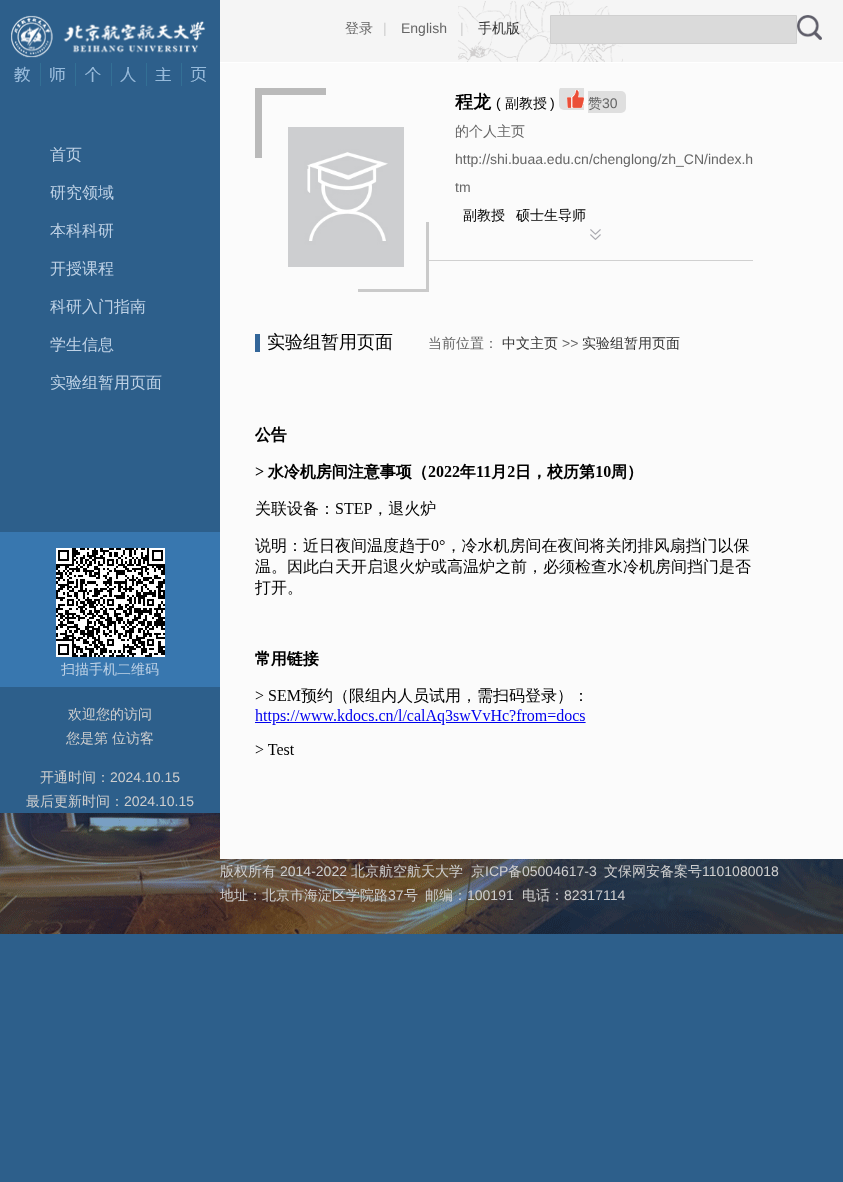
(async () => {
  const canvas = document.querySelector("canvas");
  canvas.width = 843;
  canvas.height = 1182;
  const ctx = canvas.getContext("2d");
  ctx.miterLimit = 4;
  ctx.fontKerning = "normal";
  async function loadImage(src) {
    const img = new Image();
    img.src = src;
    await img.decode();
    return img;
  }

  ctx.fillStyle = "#2d5f8b";
  ctx.fillRect(0, 0, 843, 1182);
  ctx.drawImage(await loadImage("img/1.png"), 0, 813, 843, 121);
  ctx.drawImage(await loadImage("img/2.png"), 11, 15, 195, 43);
  ctx.drawImage(await loadImage("img/3.png"), 14, 63, 193, 23);
  ctx.fillStyle = "#3877af";
  ctx.fillRect(0, 532, 220, 155);
  ctx.drawImage(await loadImage("img/4.png"), 56, 548, 109, 109);
  for (const [x, y, w, h, color] of [
    [220, 63, 623, 796, "#fbfbfb"],
    [220, 0, 623, 62, "#f5f5f5"],
    [220, 62, 623, 1, "#ffffff"],
  ]) {
    ctx.fillStyle = color;
    ctx.fillRect(x, y, w, h);
  }
  ctx.drawImage(await loadImage("img/5.png"), 458, 1, 165, 61);
  ctx.fillStyle = "#dadada";
  ctx.beginPath();
  ctx.rect(550.5, 15.5, 246, 28);
  ctx.fill();
  ctx.strokeStyle = "#d0d0d0";
  ctx.stroke();
  ctx.drawImage(await loadImage("img/6.png"), 797, 15, 25, 25);
  ctx.drawImage(await loadImage("img/7.png"), 255, 88, 174, 204);
  ctx.drawImage(await loadImage("img/8.png"), 288, 127, 116, 140);
  ctx.save();
  ctx.beginPath();
  ctx.rect(455, 88, 298, 141);
  ctx.clip();
  ctx.fillStyle = "#dfdfdf";
  ctx.beginPath();
  ctx.roundRect(559, 86, 25, 24, [5, 0, 0, 5]);
  ctx.fill();
  ctx.restore();
  ctx.drawImage(await loadImage("img/9.png"), 567, 90, 17, 18);
  ctx.fillStyle = "#dfdfdf";
  ctx.fillRect(588, 91, 14, 22);
  ctx.beginPath();
  ctx.roundRect(602, 91, 24, 22, [0, 5, 5, 0]);
  ctx.fill();
  ctx.fillStyle = "#d0d0d0";
  ctx.fillRect(429, 260, 324, 1);
  ctx.drawImage(await loadImage("img/10.png"), 590, 229, 11, 11);
  ctx.fillStyle = "#336699";
  ctx.fillRect(255, 334, 5, 18);
  ctx.drawImage(await loadImage("img/11.png"), 255, 426, 496, 329);
  ctx.font = "500 16px WenQuanYi Zen Hei";
  ctx.fillStyle = "#bfd2e6";
  for (const [text, x, y] of [
    ["首页", 50, 160],
    ["研究领域", 50, 198],
    ["本科科研", 50, 236],
    ["开授课程", 50, 274],
    ["科研入门指南", 50, 312],
    ["学生信息", 50, 350],
    ["实验组暂用页面", 50, 388],
  ]) {
    ctx.fillText(text, x, y);
  }
  ctx.font = "500 14px WenQuanYi Zen Hei";
  ctx.fillText("扫描手机二维码", 61, 674);
  ctx.fillStyle = "#cecece";
  for (const [text, x, y] of [
    ["欢迎您的访问", 68, 719],
    ["您是第", 66, 743],
    ["位访客", 112, 743],
    ["开通时间：", 40, 782],
  ]) {
    ctx.fillText(text, x, y);
  }
  ctx.font = "14px Liberation Sans";
  ctx.fillText("2024.10.15", 110, 782);
  ctx.font = "500 14px WenQuanYi Zen Hei";
  ctx.fillText("最后更新时间：", 26, 806);
  ctx.font = "14px Liberation Sans";
  ctx.fillText("2024.10.15", 124, 806);
  ctx.font = "500 14px WenQuanYi Zen Hei";
  ctx.fillStyle = "#666666";
  ctx.fillText("登录", 345, 33);
  ctx.font = "14px Liberation Sans";
  ctx.fillStyle = "#cecece";
  ctx.fillText("|", 383, 33);
  ctx.fillStyle = "#666666";
  ctx.fillText("English", 401, 33);
  ctx.fillStyle = "#cecece";
  ctx.fillText("|", 460, 33);
  ctx.font = "500 14px WenQuanYi Zen Hei";
  ctx.fillStyle = "#333333";
  ctx.fillText("手机版", 478, 33);
  ctx.font = "bold 18px WenQuanYi Zen Hei";
  ctx.fillStyle = "#000000";
  ctx.fillText("程龙", 455, 108);
  ctx.font = "14px Liberation Sans";
  ctx.fillText("(", 496, 108);
  ctx.font = "500 14px WenQuanYi Zen Hei";
  ctx.fillText("副教授", 505, 108);
  ctx.font = "14px Liberation Sans";
  ctx.fillText(")", 550, 108);
  ctx.font = "500 14px WenQuanYi Zen Hei";
  ctx.fillStyle = "#666666";
  ctx.fillText("赞", 588, 108);
  ctx.font = "14px Liberation Sans";
  ctx.fillText("30", 602, 108);
  ctx.font = "500 14px WenQuanYi Zen Hei";
  ctx.fillText("的个人主页", 455, 136);
  ctx.font = "14px Liberation Sans";
  ctx.fillText("http://shi.buaa.edu.cn/chenglong/zh_CN/index.h", 455, 164);
  ctx.fillText("tm", 455, 192);
  ctx.font = "500 14px WenQuanYi Zen Hei";
  ctx.fillStyle = "#000000";
  ctx.fillText("副教授", 463, 220);
  ctx.fillText("硕士生导师", 516, 220);
  ctx.font = "500 18px WenQuanYi Zen Hei";
  ctx.fillText("实验组暂用页面", 267, 348);
  ctx.font = "500 14px WenQuanYi Zen Hei";
  ctx.fillStyle = "#666666";
  ctx.fillText("当前位置：", 428, 348);
  ctx.fillStyle = "#333333";
  ctx.fillText("中文主页", 502, 348);
  ctx.font = "14px Liberation Sans";
  ctx.fillStyle = "#666666";
  ctx.fillText(">>", 562, 348);
  ctx.font = "500 14px WenQuanYi Zen Hei";
  ctx.fillStyle = "#333333";
  ctx.fillText("实验组暂用页面", 582, 348);
  ctx.fillStyle = "#cecece";
  ctx.fillText("版权所有", 220, 876);
  ctx.font = "14px Liberation Sans";
  ctx.fillText("2014-2022", 280, 876);
  ctx.font = "500 14px WenQuanYi Zen Hei";
  ctx.fillText("北京航空航天大学", 351, 876);
  ctx.fillText("京", 471, 876);
  ctx.font = "14px Liberation Sans";
  ctx.fillText("ICP", 485, 876);
  ctx.font = "500 14px WenQuanYi Zen Hei";
  ctx.fillText("备", 508, 876);
  ctx.font = "14px Liberation Sans";
  ctx.fillText("05004617-3", 522, 876);
  ctx.font = "500 14px WenQuanYi Zen Hei";
  ctx.fillText("文保网安备案号", 604, 876);
  ctx.font = "14px Liberation Sans";
  ctx.fillText("1101080018", 702, 876);
  ctx.font = "500 14px WenQuanYi Zen Hei";
  ctx.fillText("地址：北京市海淀区学院路", 220, 900);
  ctx.font = "14px Liberation Sans";
  ctx.fillText("37", 388, 900);
  ctx.font = "500 14px WenQuanYi Zen Hei";
  ctx.fillText("号", 404, 900);
  ctx.fillText("邮编：", 425, 900);
  ctx.font = "14px Liberation Sans";
  ctx.fillText("100191", 467, 900);
  ctx.font = "500 14px WenQuanYi Zen Hei";
  ctx.fillText("电话：", 522, 900);
  ctx.font = "14px Liberation Sans";
  ctx.fillText("82317114", 564, 900);
})();
